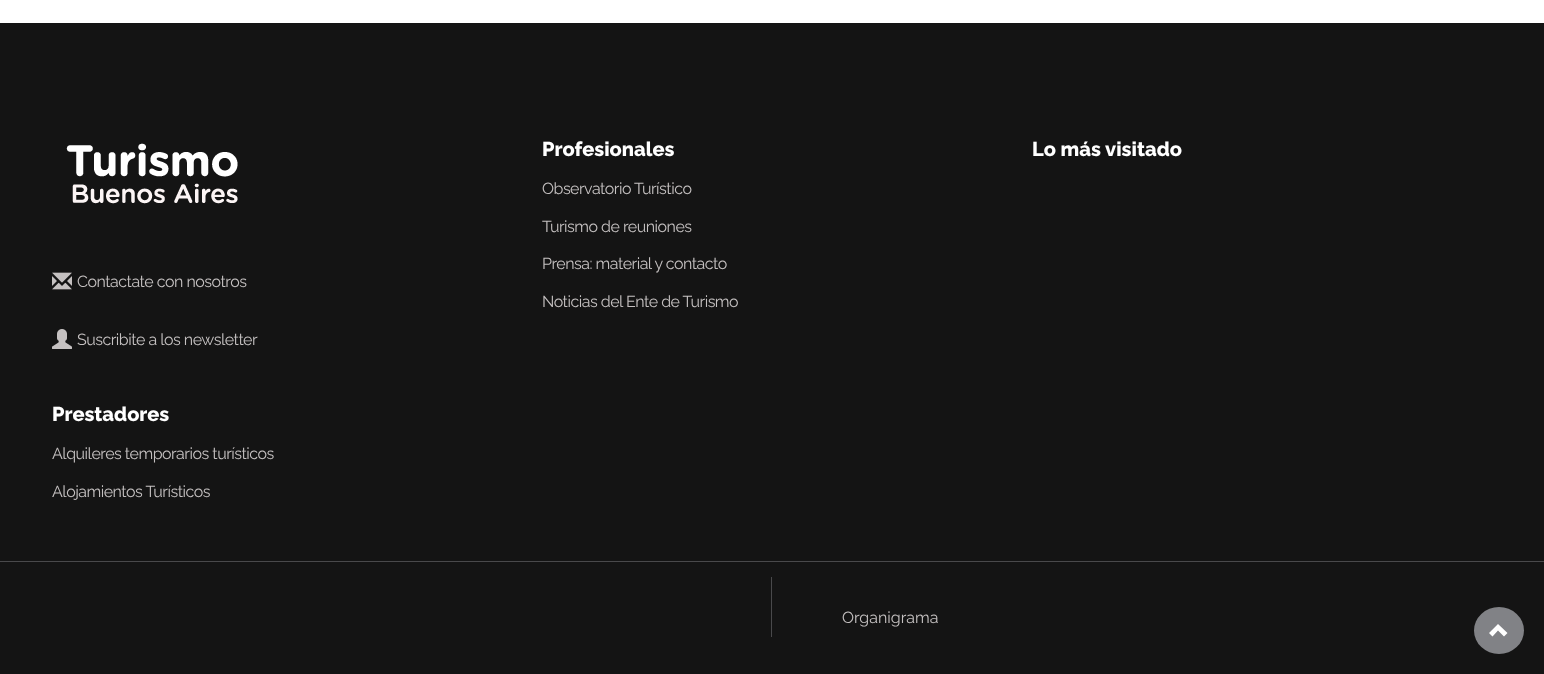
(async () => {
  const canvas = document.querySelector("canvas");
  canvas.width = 1544;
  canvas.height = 674;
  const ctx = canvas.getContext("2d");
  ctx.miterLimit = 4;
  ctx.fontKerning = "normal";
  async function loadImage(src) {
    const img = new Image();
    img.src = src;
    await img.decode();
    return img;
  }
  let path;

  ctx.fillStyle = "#ffffff";
  ctx.fillRect(0, 0, 1544, 674);
  ctx.fillStyle = "#141414";
  ctx.fillRect(0, 23, 1544, 651);
  ctx.fillStyle = "#49494b";
  ctx.fillRect(0, 561, 1544, 1);
  ctx.drawImage(await loadImage("img/1.png"), 66, 143, 172, 61);
  ctx.drawImage(await loadImage("img/2.png"), 52, 272, 20, 18);
  ctx.drawImage(await loadImage("img/3.png"), 52, 329, 20, 20);
  ctx.fillRect(771, 577, 1, 60);
  ctx.fillStyle = "#818286";
  ctx.beginPath();
  ctx.ellipse(1499, 630.5, 25, 23.5, 0, 0, Math.PI * 2);
  ctx.fill();
  ctx.fillStyle = "#ffffff";
  path = new Path2D("M1507.5 633L1504 636.5L1498 630.5L1492.5 636.5L1489 633L1498 624Z");
  ctx.fill(path);
  ctx.letterSpacing = "-0.5px";
  ctx.font = "16px Raleway";
  ctx.fillStyle = "#c5c1c1";
  ctx.fillText("Contactate con nosotros", 77, 287);
  ctx.fillText("Suscribite a los newsletter", 77, 345);
  ctx.letterSpacing = "0px";
  ctx.font = "800 20px Raleway";
  ctx.fillStyle = "#ffffff";
  ctx.fillText("Profesionales", 542, 156);
  ctx.letterSpacing = "-0.5px";
  ctx.font = "16px Raleway";
  ctx.fillStyle = "#c5c1c1";
  for (const [text, x, y] of [
    ["Observatorio Turístico", 542, 194],
    ["Turismo de reuniones", 542, 232],
    ["Prensa: material y contacto", 542, 269],
    ["Noticias del Ente de Turismo", 542, 307],
  ]) {
    ctx.fillText(text, x, y);
  }
  ctx.letterSpacing = "0px";
  ctx.font = "800 20px Raleway";
  ctx.fillStyle = "#ffffff";
  ctx.fillText("Prestadores", 52, 421);
  ctx.letterSpacing = "-0.5px";
  ctx.font = "16px Raleway";
  ctx.fillStyle = "#c5c1c1";
  ctx.fillText("Alquileres temporarios turísticos", 52, 459);
  ctx.fillText("Alojamientos Turísticos", 52, 497);
  ctx.letterSpacing = "0px";
  ctx.font = "800 20px Raleway";
  ctx.fillStyle = "#ffffff";
  ctx.fillText("Lo más visitado", 1032, 156);
  ctx.font = "16px Raleway";
  ctx.fillStyle = "#c5c1c1";
  ctx.fillText("Organigrama", 842, 623);
})();
